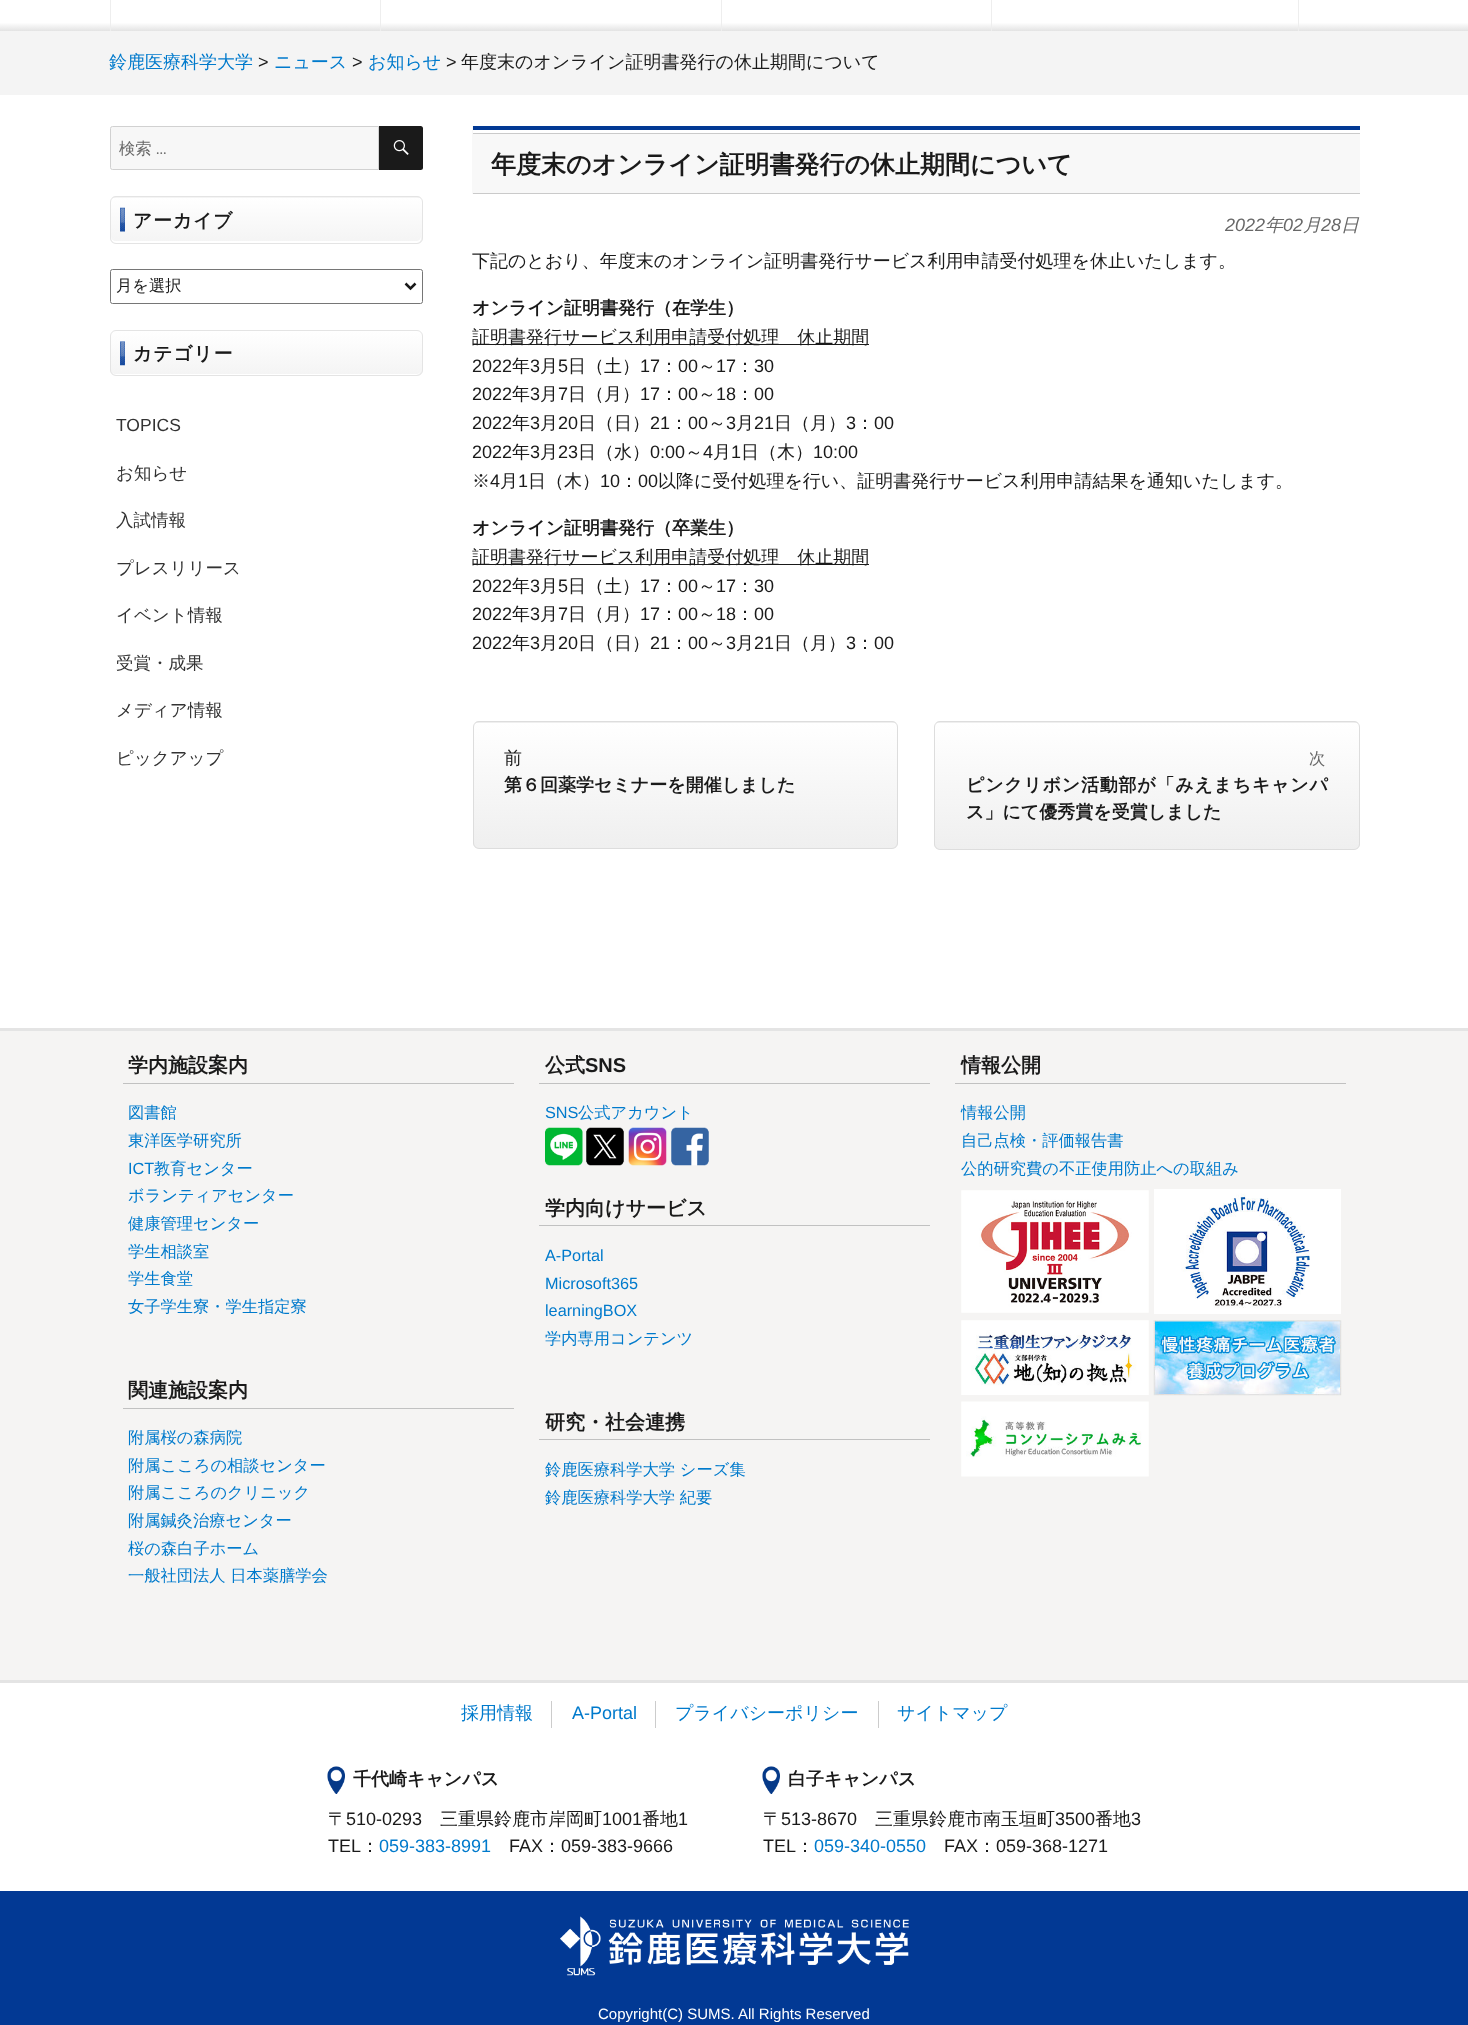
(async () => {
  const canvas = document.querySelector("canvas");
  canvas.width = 1468;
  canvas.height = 2025;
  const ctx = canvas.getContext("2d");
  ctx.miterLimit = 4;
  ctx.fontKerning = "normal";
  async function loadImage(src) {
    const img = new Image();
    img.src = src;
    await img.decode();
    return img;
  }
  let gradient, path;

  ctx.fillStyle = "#ffffff";
  ctx.fillRect(0, 0, 1468, 2025);
  gradient = ctx.createLinearGradient(734, 31, 734, -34);
  gradient.addColorStop(0, "#e3e3e3");
  gradient.addColorStop(0.13, "#ffffff");
  gradient.addColorStop(1, "#ffffff");
  ctx.fillStyle = gradient;
  ctx.fillRect(0, 23, 1468, 8);
  for (const [x, y, w, h, color] of [
    [110, 0, 1, 31, "#eeeeee"],
    [380, 0, 1, 31, "#eeeeee"],
    [721, 0, 1, 31, "#eeeeee"],
    [1298, 0, 1, 31, "#eeeeee"],
    [991, 0, 1, 31, "#eeeeee"],
    [0, 31, 1468, 64, "#f4f4f4"],
  ]) {
    ctx.fillStyle = color;
    ctx.fillRect(x, y, w, h);
  }
  ctx.fillStyle = "#f7f7f7";
  ctx.beginPath();
  ctx.roundRect(110.5, 126.5, 268, 43, [2, 0, 0, 2]);
  ctx.fill();
  ctx.strokeStyle = "#d1d1d1";
  ctx.stroke();
  ctx.fillStyle = "#1a1a1a";
  ctx.beginPath();
  ctx.roundRect(379, 126, 44, 44, [0, 2.5, 2.5, 0]);
  ctx.fill();
  ctx.drawImage(await loadImage("img/1.png"), 393, 140, 16, 15);
  ctx.save();
  ctx.beginPath();
  ctx.roundRect(110, 196, 313, 48, 6);
  ctx.clip();
  gradient = ctx.createLinearGradient(266, 152, 266, 198);
  gradient.addColorStop(0, "#ffffff");
  gradient.addColorStop(1, "#f4f4f4");
  ctx.fillStyle = gradient;
  ctx.fillRect(110, 196, 313, 2);
  gradient = ctx.createLinearGradient(266, 198, 266, 243);
  gradient.addColorStop(0, "#ffffff");
  gradient.addColorStop(1, "#f4f4f4");
  ctx.fillStyle = gradient;
  ctx.fillRect(110, 198, 313, 45);
  ctx.restore();
  ctx.fillStyle = "#ffffff";
  path = new Path2D("M111 236V238C111 241 113 243 116 243H416C419 243 421 241 421 238V236C421 239 419 241 416 241H116C113 241 111 239 111 236Z");
  ctx.fill(path);
  ctx.beginPath();
  ctx.roundRect(110.5, 196.5, 312, 47, 5.5);
  ctx.strokeStyle = "#e4e4e4";
  ctx.stroke();
  ctx.drawImage(await loadImage("img/2.png"), 120, 207, 5, 25);
  ctx.beginPath();
  ctx.roundRect(110.5, 269.5, 312, 34, 2);
  ctx.strokeStyle = "#767676";
  ctx.stroke();
  path = new Path2D("M405.5 283.5L410.5 288.5L415.5 283.5");
  ctx.strokeStyle = "#1a1a1a";
  ctx.lineWidth = 2.5;
  ctx.stroke(path);
  ctx.save();
  ctx.beginPath();
  ctx.roundRect(110, 330, 313, 46, 6);
  ctx.clip();
  gradient = ctx.createLinearGradient(266, 331, 266, 375);
  gradient.addColorStop(0, "#ffffff");
  gradient.addColorStop(1, "#f4f4f4");
  ctx.fillStyle = gradient;
  ctx.fillRect(110, 331, 313, 44);
  ctx.restore();
  path = new Path2D("M111 369C111 372 113 375 116 375H416C419 375 421 372 421 369C421 372 419 374 416 374H116C113 374 111 372 111 369Z");
  ctx.fill(path);
  ctx.beginPath();
  ctx.roundRect(110.5, 330.5, 312, 45, 5.5);
  ctx.strokeStyle = "#e4e4e4";
  ctx.lineWidth = 1;
  ctx.stroke();
  ctx.drawImage(await loadImage("img/3.png"), 120, 341, 5, 25);
  for (const [x, y, w, h, color] of [
    [472, 126, 888, 68, "#f8f8f8"],
    [473, 133, 887, 1, "#cacaca"],
    [473, 130, 887, 3, "#ffffff"],
    [473, 126, 887, 4, "#023994"],
    [473, 193, 887, 1, "#cacaca"],
    [473, 344, 396, 1, "#1a1a1a"],
    [473, 564, 396, 1, "#1a1a1a"],
  ]) {
    ctx.fillStyle = color;
    ctx.fillRect(x, y, w, h);
  }
  ctx.save();
  ctx.beginPath();
  ctx.roundRect(473, 721, 425, 128, 6);
  ctx.clip();
  gradient = ctx.createLinearGradient(685, 598, 685, 723);
  gradient.addColorStop(0, "#ffffff");
  gradient.addColorStop(1, "#efefef");
  ctx.fillStyle = gradient;
  ctx.fillRect(473, 721, 425, 2);
  gradient = ctx.createLinearGradient(685, 723, 685, 848);
  gradient.addColorStop(0, "#ffffff");
  gradient.addColorStop(1, "#efefef");
  ctx.fillStyle = gradient;
  ctx.fillRect(473, 723, 425, 125);
  ctx.restore();
  ctx.beginPath();
  ctx.roundRect(473.5, 721.5, 424, 127, 5.5);
  ctx.strokeStyle = "#dddddd";
  ctx.stroke();
  ctx.save();
  ctx.beginPath();
  ctx.roundRect(934, 721, 426, 129, 6);
  ctx.clip();
  gradient = ctx.createLinearGradient(1147, 596, 1147, 723);
  gradient.addColorStop(0, "#ffffff");
  gradient.addColorStop(1, "#efefef");
  ctx.fillStyle = gradient;
  ctx.fillRect(934, 721, 426, 2);
  gradient = ctx.createLinearGradient(1147, 723, 1147, 849);
  gradient.addColorStop(0, "#ffffff");
  gradient.addColorStop(1, "#efefef");
  ctx.fillStyle = gradient;
  ctx.fillRect(934, 723, 426, 126);
  ctx.restore();
  ctx.beginPath();
  ctx.roundRect(934.5, 721.5, 425, 128, 5.5);
  ctx.stroke();
  for (const [x, y, w, h, color] of [
    [0, 1031, 1468, 649, "#f5f4f3"],
    [0, 1028, 1468, 3, "#e4e4e4"],
    [0, 1680, 1468, 3, "#e4e4e4"],
    [123, 1083, 391, 1, "#c1c1c1"],
    [123, 1408, 391, 1, "#c1c1c1"],
    [539, 1083, 391, 1, "#c1c1c1"],
  ]) {
    ctx.fillStyle = color;
    ctx.fillRect(x, y, w, h);
  }
  ctx.drawImage(await loadImage("img/4.png"), 545, 1127, 38, 39);
  ctx.drawImage(await loadImage("img/5.png"), 586, 1127, 38, 39);
  ctx.drawImage(await loadImage("img/6.png"), 628, 1127, 39, 39);
  ctx.drawImage(await loadImage("img/7.png"), 671, 1127, 38, 39);
  for (const [x, y, w, h, color] of [
    [539, 1225, 391, 1, "#c1c1c1"],
    [539, 1439, 391, 1, "#c1c1c1"],
    [955, 1083, 391, 1, "#c1c1c1"],
  ]) {
    ctx.fillStyle = color;
    ctx.fillRect(x, y, w, h);
  }
  ctx.drawImage(await loadImage("img/8.png"), 961, 1190, 188, 123);
  ctx.drawImage(await loadImage("img/9.png"), 1154, 1189, 187, 125);
  ctx.drawImage(await loadImage("img/10.png"), 961, 1320, 188, 75);
  ctx.drawImage(await loadImage("img/11.png"), 1153, 1320, 189, 76);
  ctx.drawImage(await loadImage("img/12.png"), 961, 1401, 188, 76);
  for (const [x, y, w, h, color] of [
    [551, 1701, 1, 27, "#cccccc"],
    [655, 1701, 1, 27, "#cccccc"],
    [878, 1701, 1, 27, "#cccccc"],
  ]) {
    ctx.fillStyle = color;
    ctx.fillRect(x, y, w, h);
  }
  ctx.drawImage(await loadImage("img/13.png"), 327, 1766, 18, 28);
  ctx.drawImage(await loadImage("img/13.png"), 762, 1766, 18, 28);
  ctx.fillStyle = "#023994";
  ctx.fillRect(0, 1891, 1468, 134);
  ctx.drawImage(await loadImage("img/14.png"), 560, 1916, 349, 60);
  ctx.font = "500 18px WenQuanYi Zen Hei";
  ctx.fillStyle = "#007acc";
  ctx.fillText("鈴鹿医療科学大学", 109, 68);
  ctx.font = "18px Liberation Sans";
  ctx.fillStyle = "#1a1a1a";
  ctx.fillText(">", 258, 68);
  ctx.font = "500 18px WenQuanYi Zen Hei";
  ctx.fillStyle = "#007acc";
  ctx.fillText("ニュース", 274, 68);
  ctx.font = "18px Liberation Sans";
  ctx.fillStyle = "#1a1a1a";
  ctx.fillText(">", 352, 68);
  ctx.font = "500 18px WenQuanYi Zen Hei";
  ctx.fillStyle = "#007acc";
  ctx.fillText("お知らせ", 368, 68);
  ctx.font = "18px Liberation Sans";
  ctx.fillStyle = "#1a1a1a";
  ctx.fillText(">", 446, 68);
  ctx.font = "500 18px WenQuanYi Zen Hei";
  ctx.fillText("年度末のオンライン証明書発行の休止期間について", 461, 68);
  ctx.font = "500 16.25px WenQuanYi Zen Hei";
  ctx.fillStyle = "#686868";
  ctx.fillText("検索", 119, 154);
  ctx.font = "16.25px Montserrat";
  ctx.fillText("…", 156, 154);
  ctx.letterSpacing = "1px";
  ctx.font = "bold 18.75px WenQuanYi Zen Hei";
  ctx.fillStyle = "#1a1a1a";
  ctx.fillText("アーカイブ", 133, 227);
  ctx.letterSpacing = "0px";
  ctx.font = "500 16.25px WenQuanYi Zen Hei";
  ctx.fillText("月を選択", 116, 291);
  ctx.letterSpacing = "1px";
  ctx.font = "bold 18.75px WenQuanYi Zen Hei";
  ctx.fillText("カテゴリー", 133, 360);
  ctx.letterSpacing = "0px";
  ctx.font = "17.5px Liberation Sans";
  ctx.fillStyle = "#333333";
  ctx.fillText("TOPICS", 116, 431);
  ctx.font = "500 17.5px WenQuanYi Zen Hei";
  for (const [text, x, y] of [
    ["お知らせ", 116, 479],
    ["入試情報", 116, 526],
    ["プレスリリース", 116, 574],
    ["イベント情報", 116, 621],
    ["受賞・成果", 116, 669],
    ["メディア情報", 116, 716],
    ["ピックアップ", 116, 764],
  ]) {
    ctx.fillText(text, x, y);
  }
  ctx.font = "bold 25px WenQuanYi Zen Hei";
  ctx.fillStyle = "#1a1a1a";
  ctx.fillText("年度末のオンライン証明書発行の休止期間について", 491, 173);
  ctx.font = "italic 18px Liberation Sans";
  ctx.fillStyle = "#686868";
  ctx.fillText("2022", 1225, 231);
  ctx.font = "italic 500 18px WenQuanYi Zen Hei";
  ctx.fillText("年", 1265, 231);
  ctx.font = "italic 18px Liberation Sans";
  ctx.fillText("02", 1283, 231);
  ctx.font = "italic 500 18px WenQuanYi Zen Hei";
  ctx.fillText("月", 1303, 231);
  ctx.font = "italic 18px Liberation Sans";
  ctx.fillText("28", 1321, 231);
  ctx.font = "italic 500 18px WenQuanYi Zen Hei";
  ctx.fillText("日", 1341, 231);
  ctx.font = "500 18px WenQuanYi Zen Hei";
  ctx.fillStyle = "#1a1a1a";
  ctx.fillText("下記のとおり、年度末のオンライン証明書発行サービス利用申請受付処理を休止いたします。", 472, 267);
  ctx.font = "bold 18px WenQuanYi Zen Hei";
  ctx.fillText("オンライン証明書発行（在学生）", 472, 314);
  ctx.font = "500 18px WenQuanYi Zen Hei";
  ctx.fillText("証明書発行サービス利用申請受付処理　休止期間", 472, 343);
  ctx.font = "18px Liberation Sans";
  ctx.fillText("2022", 472, 372);
  ctx.font = "500 18px WenQuanYi Zen Hei";
  ctx.fillText("年", 512, 372);
  ctx.font = "18px Liberation Sans";
  ctx.fillText("3", 530, 372);
  ctx.font = "500 18px WenQuanYi Zen Hei";
  ctx.fillText("月", 540, 372);
  ctx.font = "18px Liberation Sans";
  ctx.fillText("5", 558, 372);
  ctx.font = "500 18px WenQuanYi Zen Hei";
  ctx.fillText("日（土）", 568, 372);
  ctx.font = "18px Liberation Sans";
  ctx.fillText("17", 640, 372);
  ctx.font = "500 18px WenQuanYi Zen Hei";
  ctx.fillText("：", 660, 372);
  ctx.font = "18px Liberation Sans";
  ctx.fillText("00", 678, 372);
  ctx.font = "500 18px WenQuanYi Zen Hei";
  ctx.fillText("～", 698, 372);
  ctx.font = "18px Liberation Sans";
  ctx.fillText("17", 716, 372);
  ctx.font = "500 18px WenQuanYi Zen Hei";
  ctx.fillText("：", 736, 372);
  ctx.font = "18px Liberation Sans";
  ctx.fillText("30", 754, 372);
  ctx.fillText("2022", 472, 400);
  ctx.font = "500 18px WenQuanYi Zen Hei";
  ctx.fillText("年", 512, 400);
  ctx.font = "18px Liberation Sans";
  ctx.fillText("3", 530, 400);
  ctx.font = "500 18px WenQuanYi Zen Hei";
  ctx.fillText("月", 540, 400);
  ctx.font = "18px Liberation Sans";
  ctx.fillText("7", 558, 400);
  ctx.font = "500 18px WenQuanYi Zen Hei";
  ctx.fillText("日（月）", 568, 400);
  ctx.font = "18px Liberation Sans";
  ctx.fillText("17", 640, 400);
  ctx.font = "500 18px WenQuanYi Zen Hei";
  ctx.fillText("：", 660, 400);
  ctx.font = "18px Liberation Sans";
  ctx.fillText("00", 678, 400);
  ctx.font = "500 18px WenQuanYi Zen Hei";
  ctx.fillText("～", 698, 400);
  ctx.font = "18px Liberation Sans";
  ctx.fillText("18", 716, 400);
  ctx.font = "500 18px WenQuanYi Zen Hei";
  ctx.fillText("：", 736, 400);
  ctx.font = "18px Liberation Sans";
  ctx.fillText("00", 754, 400);
  ctx.fillText("2022", 472, 429);
  ctx.font = "500 18px WenQuanYi Zen Hei";
  ctx.fillText("年", 512, 429);
  ctx.font = "18px Liberation Sans";
  ctx.fillText("3", 530, 429);
  ctx.font = "500 18px WenQuanYi Zen Hei";
  ctx.fillText("月", 540, 429);
  ctx.font = "18px Liberation Sans";
  ctx.fillText("20", 558, 429);
  ctx.font = "500 18px WenQuanYi Zen Hei";
  ctx.fillText("日（日）", 578, 429);
  ctx.font = "18px Liberation Sans";
  ctx.fillText("21", 650, 429);
  ctx.font = "500 18px WenQuanYi Zen Hei";
  ctx.fillText("：", 670, 429);
  ctx.font = "18px Liberation Sans";
  ctx.fillText("00", 688, 429);
  ctx.font = "500 18px WenQuanYi Zen Hei";
  ctx.fillText("～", 708, 429);
  ctx.font = "18px Liberation Sans";
  ctx.fillText("3", 726, 429);
  ctx.font = "500 18px WenQuanYi Zen Hei";
  ctx.fillText("月", 736, 429);
  ctx.font = "18px Liberation Sans";
  ctx.fillText("21", 754, 429);
  ctx.font = "500 18px WenQuanYi Zen Hei";
  ctx.fillText("日（月）", 774, 429);
  ctx.font = "18px Liberation Sans";
  ctx.fillText("3", 846, 429);
  ctx.font = "500 18px WenQuanYi Zen Hei";
  ctx.fillText("：", 856, 429);
  ctx.font = "18px Liberation Sans";
  ctx.fillText("00", 874, 429);
  ctx.fillText("2022", 472, 458);
  ctx.font = "500 18px WenQuanYi Zen Hei";
  ctx.fillText("年", 512, 458);
  ctx.font = "18px Liberation Sans";
  ctx.fillText("3", 530, 458);
  ctx.font = "500 18px WenQuanYi Zen Hei";
  ctx.fillText("月", 540, 458);
  ctx.font = "18px Liberation Sans";
  ctx.fillText("23", 558, 458);
  ctx.font = "500 18px WenQuanYi Zen Hei";
  ctx.fillText("日（水）", 578, 458);
  ctx.font = "18px Liberation Sans";
  ctx.fillText("0:00", 650, 458);
  ctx.font = "500 18px WenQuanYi Zen Hei";
  ctx.fillText("～", 685, 458);
  ctx.font = "18px Liberation Sans";
  ctx.fillText("4", 703, 458);
  ctx.font = "500 18px WenQuanYi Zen Hei";
  ctx.fillText("月", 713, 458);
  ctx.font = "18px Liberation Sans";
  ctx.fillText("1", 731, 458);
  ctx.font = "500 18px WenQuanYi Zen Hei";
  ctx.fillText("日（木）", 741, 458);
  ctx.font = "18px Liberation Sans";
  ctx.fillText("10:00", 813, 458);
  ctx.font = "500 18px WenQuanYi Zen Hei";
  ctx.fillText("※", 472, 487);
  ctx.font = "18px Liberation Sans";
  ctx.fillText("4", 490, 487);
  ctx.font = "500 18px WenQuanYi Zen Hei";
  ctx.fillText("月", 500, 487);
  ctx.font = "18px Liberation Sans";
  ctx.fillText("1", 518, 487);
  ctx.font = "500 18px WenQuanYi Zen Hei";
  ctx.fillText("日（木）", 528, 487);
  ctx.font = "18px Liberation Sans";
  ctx.fillText("10", 600, 487);
  ctx.font = "500 18px WenQuanYi Zen Hei";
  ctx.fillText("：", 620, 487);
  ctx.font = "18px Liberation Sans";
  ctx.fillText("00", 638, 487);
  ctx.font = "500 18px WenQuanYi Zen Hei";
  ctx.fillText("以降に受付処理を行い、証明書発行サービス利用申請結果を通知いたします。", 658, 487);
  ctx.font = "bold 18px WenQuanYi Zen Hei";
  ctx.fillText("オンライン証明書発行（卒業生）", 472, 534);
  ctx.font = "500 18px WenQuanYi Zen Hei";
  ctx.fillText("証明書発行サービス利用申請受付処理　休止期間", 472, 563);
  ctx.font = "18px Liberation Sans";
  ctx.fillText("2022", 472, 592);
  ctx.font = "500 18px WenQuanYi Zen Hei";
  ctx.fillText("年", 512, 592);
  ctx.font = "18px Liberation Sans";
  ctx.fillText("3", 530, 592);
  ctx.font = "500 18px WenQuanYi Zen Hei";
  ctx.fillText("月", 540, 592);
  ctx.font = "18px Liberation Sans";
  ctx.fillText("5", 558, 592);
  ctx.font = "500 18px WenQuanYi Zen Hei";
  ctx.fillText("日（土）", 568, 592);
  ctx.font = "18px Liberation Sans";
  ctx.fillText("17", 640, 592);
  ctx.font = "500 18px WenQuanYi Zen Hei";
  ctx.fillText("：", 660, 592);
  ctx.font = "18px Liberation Sans";
  ctx.fillText("00", 678, 592);
  ctx.font = "500 18px WenQuanYi Zen Hei";
  ctx.fillText("～", 698, 592);
  ctx.font = "18px Liberation Sans";
  ctx.fillText("17", 716, 592);
  ctx.font = "500 18px WenQuanYi Zen Hei";
  ctx.fillText("：", 736, 592);
  ctx.font = "18px Liberation Sans";
  ctx.fillText("30", 754, 592);
  ctx.fillText("2022", 472, 620);
  ctx.font = "500 18px WenQuanYi Zen Hei";
  ctx.fillText("年", 512, 620);
  ctx.font = "18px Liberation Sans";
  ctx.fillText("3", 530, 620);
  ctx.font = "500 18px WenQuanYi Zen Hei";
  ctx.fillText("月", 540, 620);
  ctx.font = "18px Liberation Sans";
  ctx.fillText("7", 558, 620);
  ctx.font = "500 18px WenQuanYi Zen Hei";
  ctx.fillText("日（月）", 568, 620);
  ctx.font = "18px Liberation Sans";
  ctx.fillText("17", 640, 620);
  ctx.font = "500 18px WenQuanYi Zen Hei";
  ctx.fillText("：", 660, 620);
  ctx.font = "18px Liberation Sans";
  ctx.fillText("00", 678, 620);
  ctx.font = "500 18px WenQuanYi Zen Hei";
  ctx.fillText("～", 698, 620);
  ctx.font = "18px Liberation Sans";
  ctx.fillText("18", 716, 620);
  ctx.font = "500 18px WenQuanYi Zen Hei";
  ctx.fillText("：", 736, 620);
  ctx.font = "18px Liberation Sans";
  ctx.fillText("00", 754, 620);
  ctx.fillText("2022", 472, 649);
  ctx.font = "500 18px WenQuanYi Zen Hei";
  ctx.fillText("年", 512, 649);
  ctx.font = "18px Liberation Sans";
  ctx.fillText("3", 530, 649);
  ctx.font = "500 18px WenQuanYi Zen Hei";
  ctx.fillText("月", 540, 649);
  ctx.font = "18px Liberation Sans";
  ctx.fillText("20", 558, 649);
  ctx.font = "500 18px WenQuanYi Zen Hei";
  ctx.fillText("日（日）", 578, 649);
  ctx.font = "18px Liberation Sans";
  ctx.fillText("21", 650, 649);
  ctx.font = "500 18px WenQuanYi Zen Hei";
  ctx.fillText("：", 670, 649);
  ctx.font = "18px Liberation Sans";
  ctx.fillText("00", 688, 649);
  ctx.font = "500 18px WenQuanYi Zen Hei";
  ctx.fillText("～", 708, 649);
  ctx.font = "18px Liberation Sans";
  ctx.fillText("3", 726, 649);
  ctx.font = "500 18px WenQuanYi Zen Hei";
  ctx.fillText("月", 736, 649);
  ctx.font = "18px Liberation Sans";
  ctx.fillText("21", 754, 649);
  ctx.font = "500 18px WenQuanYi Zen Hei";
  ctx.fillText("日（月）", 774, 649);
  ctx.font = "18px Liberation Sans";
  ctx.fillText("3", 846, 649);
  ctx.font = "500 18px WenQuanYi Zen Hei";
  ctx.fillText("：", 856, 649);
  ctx.font = "18px Liberation Sans";
  ctx.fillText("00", 874, 649);
  ctx.font = "500 18px WenQuanYi Zen Hei";
  ctx.fillText("前", 504, 764);
  ctx.font = "bold 18px WenQuanYi Zen Hei";
  ctx.fillText("第６回薬学セミナーを開催しました", 504, 791);
  ctx.letterSpacing = "1px";
  ctx.font = "500 16.25px WenQuanYi Zen Hei";
  ctx.fillStyle = "#686868";
  ctx.fillText("次", 1309, 764);
  ctx.letterSpacing = "0.75px";
  ctx.font = "bold 18px WenQuanYi Zen Hei";
  ctx.fillStyle = "#1a1a1a";
  ctx.fillText("ピンクリボン活動部が「みえまちキャンパ", 966, 791);
  ctx.letterSpacing = "0px";
  ctx.fillText("ス」にて優秀賞を受賞しました", 966, 818);
  ctx.font = "bold 20px WenQuanYi Zen Hei";
  ctx.fillText("学内施設案内", 128, 1072);
  ctx.font = "500 16.25px WenQuanYi Zen Hei";
  ctx.fillStyle = "#007acc";
  ctx.fillText("図書館", 128, 1118);
  ctx.fillText("東洋医学研究所", 128, 1146);
  ctx.font = "16.25px Liberation Sans";
  ctx.fillText("ICT", 128, 1174);
  ctx.font = "500 16.25px WenQuanYi Zen Hei";
  for (const [text, x, y] of [
    ["教育センター", 154, 1174],
    ["ボランティアセンター", 128, 1201],
    ["健康管理センター", 128, 1229],
    ["学生相談室", 128, 1257],
    ["学生食堂", 128, 1284],
    ["女子学生寮・学生指定寮", 128, 1312],
  ]) {
    ctx.fillText(text, x, y);
  }
  ctx.font = "bold 20px WenQuanYi Zen Hei";
  ctx.fillStyle = "#1a1a1a";
  ctx.fillText("関連施設案内", 128, 1397);
  ctx.font = "500 16.25px WenQuanYi Zen Hei";
  ctx.fillStyle = "#007acc";
  for (const [text, x, y] of [
    ["附属桜の森病院", 128, 1443],
    ["附属こころの相談センター", 128, 1471],
    ["附属こころのクリニック", 128, 1498],
    ["附属鍼灸治療センター", 128, 1526],
    ["桜の森白子ホーム", 128, 1554],
    ["一般社団法人 日本薬膳学会", 128, 1581],
  ]) {
    ctx.fillText(text, x, y);
  }
  ctx.font = "bold 20px WenQuanYi Zen Hei";
  ctx.fillStyle = "#1a1a1a";
  ctx.fillText("公式", 545, 1072);
  ctx.font = "bold 20px Liberation Sans";
  ctx.fillText("SNS", 585, 1072);
  ctx.font = "16.25px Liberation Sans";
  ctx.fillStyle = "#007acc";
  ctx.fillText("SNS", 545, 1118);
  ctx.font = "500 16.25px WenQuanYi Zen Hei";
  ctx.fillText("公式アカウント", 578, 1118);
  ctx.font = "bold 20px WenQuanYi Zen Hei";
  ctx.fillStyle = "#1a1a1a";
  ctx.fillText("学内向けサービス", 545, 1215);
  ctx.font = "16.25px Liberation Sans";
  ctx.fillStyle = "#007acc";
  for (const [text, x, y] of [
    ["A-Portal", 545, 1261],
    ["Microsoft365", 545, 1289],
    ["learningBOX", 545, 1316],
  ]) {
    ctx.fillText(text, x, y);
  }
  ctx.font = "500 16.25px WenQuanYi Zen Hei";
  ctx.fillText("学内専用コンテンツ", 545, 1344);
  ctx.font = "bold 20px WenQuanYi Zen Hei";
  ctx.fillStyle = "#1a1a1a";
  ctx.fillText("研究・社会連携", 545, 1429);
  ctx.font = "500 16.25px WenQuanYi Zen Hei";
  ctx.fillStyle = "#007acc";
  ctx.fillText("鈴鹿医療科学大学 シーズ集", 545, 1475);
  ctx.fillText("鈴鹿医療科学大学 紀要", 545, 1503);
  ctx.font = "bold 20px WenQuanYi Zen Hei";
  ctx.fillStyle = "#1a1a1a";
  ctx.fillText("情報公開", 961, 1072);
  ctx.font = "500 16.25px WenQuanYi Zen Hei";
  ctx.fillStyle = "#007acc";
  for (const [text, x, y] of [
    ["情報公開", 961, 1118],
    ["自己点検・評価報告書", 961, 1146],
    ["公的研究費の不正使用防止への取組み", 961, 1174],
  ]) {
    ctx.fillText(text, x, y);
  }
  ctx.font = "500 18px WenQuanYi Zen Hei";
  ctx.fillText("採用情報", 461, 1719);
  ctx.font = "18px Liberation Sans";
  ctx.fillText("A-Portal", 572, 1719);
  ctx.font = "500 18px WenQuanYi Zen Hei";
  ctx.fillText("プライバシーポリシー", 675, 1719);
  ctx.fillText("サイトマップ", 897, 1719);
  ctx.font = "bold 18px WenQuanYi Zen Hei";
  ctx.fillStyle = "#1a1a1a";
  ctx.fillText("千代崎キャンパス", 353, 1785);
  ctx.font = "500 18px WenQuanYi Zen Hei";
  ctx.fillText("〒", 328, 1825);
  ctx.font = "18px Liberation Sans";
  ctx.fillText("510-0293", 346, 1825);
  ctx.font = "500 18px WenQuanYi Zen Hei";
  ctx.fillText("三重県鈴鹿市岸岡町", 440, 1825);
  ctx.font = "18px Liberation Sans";
  ctx.fillText("1001", 602, 1825);
  ctx.font = "500 18px WenQuanYi Zen Hei";
  ctx.fillText("番地", 642, 1825);
  ctx.font = "18px Liberation Sans";
  ctx.fillText("1", 678, 1825);
  ctx.fillText("TEL", 328, 1852);
  ctx.font = "500 18px WenQuanYi Zen Hei";
  ctx.fillText("：", 361, 1852);
  ctx.font = "18px Liberation Sans";
  ctx.fillStyle = "#007acc";
  ctx.fillText("059-383-8991", 379, 1852);
  ctx.fillStyle = "#1a1a1a";
  ctx.fillText("FAX", 509, 1852);
  ctx.font = "500 18px WenQuanYi Zen Hei";
  ctx.fillText("：", 543, 1852);
  ctx.font = "18px Liberation Sans";
  ctx.fillText("059-383-9666", 561, 1852);
  ctx.font = "bold 18px WenQuanYi Zen Hei";
  ctx.fillText("白子キャンパス", 788, 1785);
  ctx.font = "500 18px WenQuanYi Zen Hei";
  ctx.fillText("〒", 763, 1825);
  ctx.font = "18px Liberation Sans";
  ctx.fillText("513-8670", 781, 1825);
  ctx.font = "500 18px WenQuanYi Zen Hei";
  ctx.fillText("三重県鈴鹿市南玉垣町", 875, 1825);
  ctx.font = "18px Liberation Sans";
  ctx.fillText("3500", 1055, 1825);
  ctx.font = "500 18px WenQuanYi Zen Hei";
  ctx.fillText("番地", 1095, 1825);
  ctx.font = "18px Liberation Sans";
  ctx.fillText("3", 1131, 1825);
  ctx.fillText("TEL", 763, 1852);
  ctx.font = "500 18px WenQuanYi Zen Hei";
  ctx.fillText("：", 796, 1852);
  ctx.font = "18px Liberation Sans";
  ctx.fillStyle = "#007acc";
  ctx.fillText("059-340-0550", 814, 1852);
  ctx.fillStyle = "#1a1a1a";
  ctx.fillText("FAX", 944, 1852);
  ctx.font = "500 18px WenQuanYi Zen Hei";
  ctx.fillText("：", 978, 1852);
  ctx.font = "18px Liberation Sans";
  ctx.fillText("059-368-1271", 996, 1852);
  ctx.font = "15px Liberation Sans";
  ctx.fillStyle = "#ffffff";
  ctx.fillText("Copyright(C) SUMS. All Rights Reserved", 598, 2019);
})();
